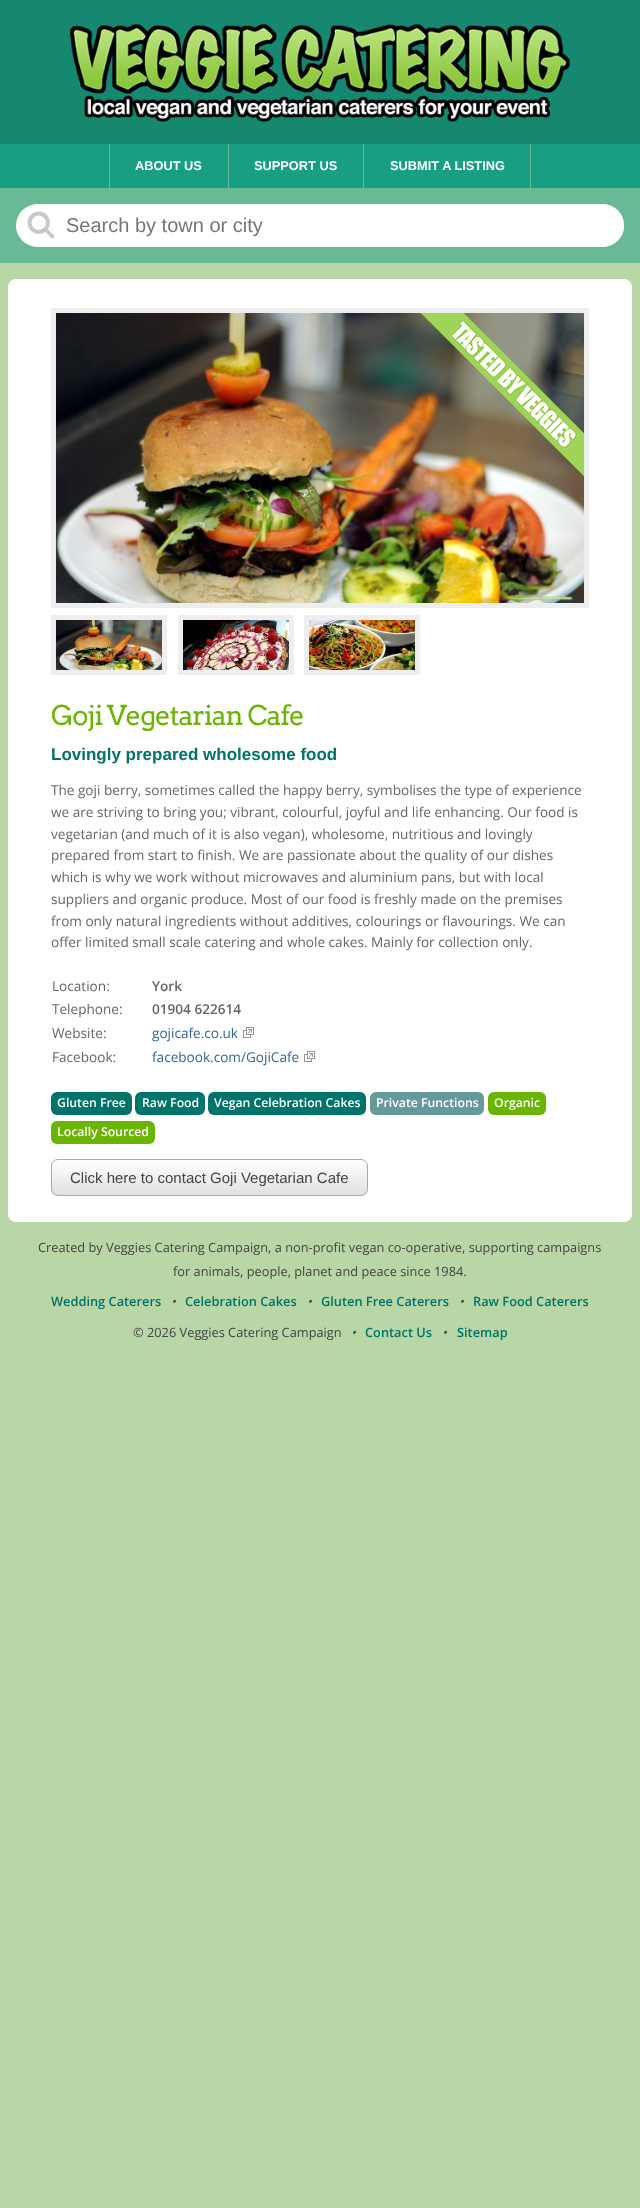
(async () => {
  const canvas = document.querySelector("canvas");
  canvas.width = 640;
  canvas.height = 2208;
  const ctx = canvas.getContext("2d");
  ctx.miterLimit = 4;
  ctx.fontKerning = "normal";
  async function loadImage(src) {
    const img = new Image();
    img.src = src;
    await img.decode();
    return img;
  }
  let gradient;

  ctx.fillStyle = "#b9d6a7";
  ctx.fillRect(0, 0, 640, 2208);
  ctx.fillStyle = "#15886f";
  ctx.fillRect(0, 0, 640, 144);
  ctx.drawImage(await loadImage("img/1.png"), 70, 24, 500, 98);
  for (const [x, y, w, h, color] of [
    [0, 144, 640, 44, "#179e83"],
    [228, 144, 1, 44, "#68ba94"],
    [109, 144, 1, 44, "#68ba94"],
    [363, 144, 1, 44, "#68ba94"],
    [530, 144, 1, 44, "#68ba94"],
    [0, 188, 640, 75, "#68ba94"],
  ]) {
    ctx.fillStyle = color;
    ctx.fillRect(x, y, w, h);
  }
  ctx.fillStyle = "#ffffff";
  ctx.beginPath();
  ctx.roundRect(16, 204, 608, 43, 21.5);
  ctx.fill();
  ctx.drawImage(await loadImage("img/2.png"), 27, 211, 28, 28);
  ctx.beginPath();
  ctx.roundRect(66, 204, 558, 43, [0, 21.5, 21.5, 0]);
  ctx.fill();
  ctx.beginPath();
  ctx.roundRect(8, 279, 624, 943, 8);
  ctx.fill();
  ctx.drawImage(await loadImage("img/3.png"), 56, 313, 528, 290);
  ctx.strokeStyle = "#eeeeee";
  ctx.lineWidth = 5;
  ctx.strokeRect(53.5, 310.5, 533, 295);
  ctx.drawImage(await loadImage("img/4.png"), 421, 313, 163, 163);
  ctx.strokeRect(53.5, 617.5, 111, 55);
  ctx.strokeRect(180.5, 617.5, 111, 55);
  ctx.strokeRect(306.5, 617.5, 111, 55);
  ctx.drawImage(await loadImage("img/5.png"), 56, 620, 106, 50);
  ctx.drawImage(await loadImage("img/6.png"), 183, 620, 106, 50);
  ctx.drawImage(await loadImage("img/7.png"), 309, 620, 106, 50);
  ctx.drawImage(await loadImage("img/8.png"), 243, 1027, 11, 11);
  ctx.drawImage(await loadImage("img/8.png"), 304, 1051, 11, 11);
  ctx.fillStyle = "#00746b";
  ctx.beginPath();
  ctx.roundRect(51, 1092, 81, 23, 6);
  ctx.fill();
  ctx.beginPath();
  ctx.roundRect(135, 1092, 70, 23, 6);
  ctx.fill();
  ctx.beginPath();
  ctx.roundRect(208, 1092, 158, 23, 6);
  ctx.fill();
  ctx.fillStyle = "#669999";
  ctx.beginPath();
  ctx.roundRect(370, 1092, 114, 23, 6);
  ctx.fill();
  ctx.fillStyle = "#6ab404";
  ctx.beginPath();
  ctx.roundRect(488, 1092, 58, 23, 6);
  ctx.fill();
  ctx.beginPath();
  ctx.roundRect(51, 1121, 104, 23, 6);
  ctx.fill();
  ctx.save();
  ctx.beginPath();
  ctx.roundRect(51, 1159, 317, 37, 7);
  ctx.clip();
  gradient = ctx.createLinearGradient(210, 1160, 210, 1195);
  gradient.addColorStop(0, "#ffffff");
  gradient.addColorStop(1, "#e0e0e0");
  ctx.fillStyle = gradient;
  ctx.fillRect(51, 1160, 317, 35);
  ctx.restore();
  ctx.beginPath();
  ctx.roundRect(51.5, 1159.5, 316, 36, 6.5);
  ctx.strokeStyle = "#aaaaaa";
  ctx.lineWidth = 1;
  ctx.stroke();
  ctx.font = "bold 12.8px Liberation Sans";
  ctx.fillStyle = "#ffffff";
  for (const [text, x, y] of [
    ["ABOUT US", 135, 170],
    ["SUPPORT US", 254, 170],
    ["SUBMIT A LISTING", 390, 170],
  ]) {
    ctx.fillText(text, x, y);
  }
  ctx.font = "20px Liberation Sans";
  ctx.fillStyle = "#757575";
  ctx.fillText("Search by town or city", 66, 232);
  ctx.letterSpacing = "-1.1px";
  ctx.font = "27.25px Arvo";
  ctx.fillStyle = "#6ab404";
  ctx.fillText("Goji Vegetarian Cafe", 51, 725);
  ctx.letterSpacing = "0px";
  ctx.font = "bold 17px Liberation Sans";
  ctx.fillStyle = "#00746b";
  ctx.fillText("Lovingly prepared wholesome food", 51, 760);
  ctx.font = "13.6px Open Sans";
  ctx.fillStyle = "#666666";
  for (const [text, x, y] of [
    ["The goji berry, sometimes called the happy berry, symbolises the type of experience", 51, 795],
    ["we are striving to bring you; vibrant, colourful, joyful and life enhancing. Our food is", 51, 817],
    ["vegetarian (and much of it is also vegan), wholesome, nutritious and lovingly", 51, 839],
    ["prepared from start to finish. We are passionate about the quality of our dishes", 51, 860],
    ["which is why we work without microwaves and aluminium pans, but with local", 51, 882],
    ["suppliers and organic produce. Most of our food is freshly made on the premises", 51, 904],
    ["from only natural ingredients without additives, colourings or flavourings. We can", 51, 926],
    ["offer limited small scale catering and whole cakes. Mainly for collection only.", 51, 947],
    ["Location:", 52, 991],
  ]) {
    ctx.fillText(text, x, y);
  }
  ctx.font = "600 13.6px Open Sans";
  ctx.fillText("York", 152, 991);
  ctx.font = "13.6px Open Sans";
  ctx.fillText("Telephone:", 52, 1014);
  ctx.font = "600 13.6px Open Sans";
  ctx.fillText("01904 622614", 152, 1014);
  ctx.font = "13.6px Open Sans";
  ctx.fillText("Website:", 52, 1038);
  ctx.fillStyle = "#336699";
  ctx.fillText("gojicafe.co.uk", 152, 1038);
  ctx.fillStyle = "#666666";
  ctx.fillText("Facebook:", 52, 1062);
  ctx.fillStyle = "#336699";
  ctx.fillText("facebook.com/GojiCafe", 152, 1062);
  ctx.font = "600 12.25px Open Sans";
  ctx.fillStyle = "#ffffff";
  for (const [text, x, y] of [
    ["Gluten Free", 57, 1107],
    ["Raw Food", 142, 1107],
    ["Vegan Celebration Cakes", 214, 1107],
    ["Private Functions", 376, 1107],
    ["Organic", 494, 1107],
    ["Locally Sourced", 57, 1136],
  ]) {
    ctx.fillText(text, x, y);
  }
  ctx.font = "15px Liberation Sans";
  ctx.fillStyle = "#444444";
  ctx.fillText("Click here to contact Goji Vegetarian Cafe", 70, 1183);
  ctx.font = "12.8px Open Sans";
  ctx.fillText("Created by Veggies Catering Campaign, a non-profit vegan co-operative, supporting campaigns", 38, 1252);
  ctx.fillText("for animals, people, planet and peace since 1984.", 173, 1276);
  ctx.font = "600 12.8px Open Sans";
  ctx.fillStyle = "#00746b";
  ctx.fillText("Wedding Caterers", 51, 1306);
  ctx.font = "italic 12.8px Open Sans";
  ctx.fillStyle = "#444444";
  ctx.fillText("•", 171, 1306);
  ctx.font = "600 12.8px Open Sans";
  ctx.fillStyle = "#00746b";
  ctx.fillText("Celebration Cakes", 185, 1306);
  ctx.font = "italic 12.8px Open Sans";
  ctx.fillStyle = "#444444";
  ctx.fillText("•", 307, 1306);
  ctx.font = "600 12.8px Open Sans";
  ctx.fillStyle = "#00746b";
  ctx.fillText("Gluten Free Caterers", 321, 1306);
  ctx.font = "italic 12.8px Open Sans";
  ctx.fillStyle = "#444444";
  ctx.fillText("•", 459, 1306);
  ctx.font = "600 12.8px Open Sans";
  ctx.fillStyle = "#00746b";
  ctx.fillText("Raw Food Caterers", 473, 1306);
  ctx.font = "12.8px Open Sans";
  ctx.fillStyle = "#444444";
  ctx.fillText("© 2026 Veggies Catering Campaign", 133, 1337);
  ctx.font = "italic 12.8px Open Sans";
  ctx.fillText("•", 351, 1337);
  ctx.font = "600 12.8px Open Sans";
  ctx.fillStyle = "#00746b";
  ctx.fillText("Contact Us", 365, 1337);
  ctx.font = "italic 12.8px Open Sans";
  ctx.fillStyle = "#444444";
  ctx.fillText("•", 442, 1337);
  ctx.font = "600 12.8px Open Sans";
  ctx.fillStyle = "#00746b";
  ctx.fillText("Sitemap", 457, 1337);
})();
